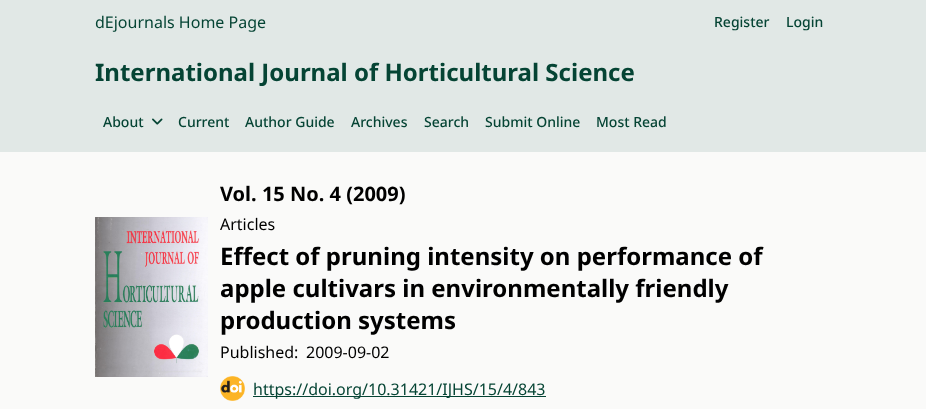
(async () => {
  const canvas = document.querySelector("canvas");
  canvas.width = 926;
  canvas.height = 409;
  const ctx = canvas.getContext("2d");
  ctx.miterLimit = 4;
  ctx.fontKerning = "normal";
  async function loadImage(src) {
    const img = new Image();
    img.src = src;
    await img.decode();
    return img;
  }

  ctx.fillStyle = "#fafaf9";
  ctx.fillRect(0, 0, 926, 409);
  ctx.fillStyle = "#e1e8e6";
  ctx.fillRect(0, 0, 926, 152);
  ctx.drawImage(await loadImage("img/1.png"), 152, 118, 11, 7);
  ctx.drawImage(await loadImage("img/2.png"), 95, 217, 113, 160);
  ctx.drawImage(await loadImage("img/3.png"), 220, 376, 25, 25);
  ctx.fillStyle = "#054434";
  ctx.fillRect(253, 396, 293, 1);
  ctx.font = "16px Noto Sans";
  ctx.fillText("dEjournals Home Page", 95, 28);
  ctx.font = "500 14px Noto Sans";
  ctx.fillText("Register", 714, 27);
  ctx.fillText("Login", 786, 27);
  ctx.font = "bold 24px Noto Sans";
  ctx.fillText("International Journal of Horticultural Science", 95, 81);
  ctx.font = "500 14px Noto Sans";
  for (const [text, x, y] of [
    ["About", 103, 127],
    ["Current", 178, 127],
    ["Author Guide", 245, 127],
    ["Archives", 351, 127],
    ["Search", 424, 127],
    ["Submit Online", 485, 127],
    ["Most Read", 596, 127],
  ]) {
    ctx.fillText(text, x, y);
  }
  ctx.font = "bold 20px Noto Sans";
  ctx.fillStyle = "#000000";
  ctx.fillText("Vol. 15 No. 4 (2009)", 220, 201);
  ctx.font = "16px Noto Sans";
  ctx.fillText("Articles", 220, 230);
  ctx.font = "bold 24px Noto Sans";
  for (const [text, x, y] of [
    ["Effect of pruning intensity on performance of", 220, 265],
    ["apple cultivars in environmentally friendly", 220, 297],
    ["production systems", 220, 329],
  ]) {
    ctx.fillText(text, x, y);
  }
  ctx.font = "16px Noto Sans";
  ctx.fillText("Published:", 220, 358);
  ctx.fillText("2009-09-02", 306, 358);
  ctx.fillStyle = "#054434";
  ctx.fillText("https://doi.org/10.31421/IJHS/15/4/843", 253, 395);
})();
